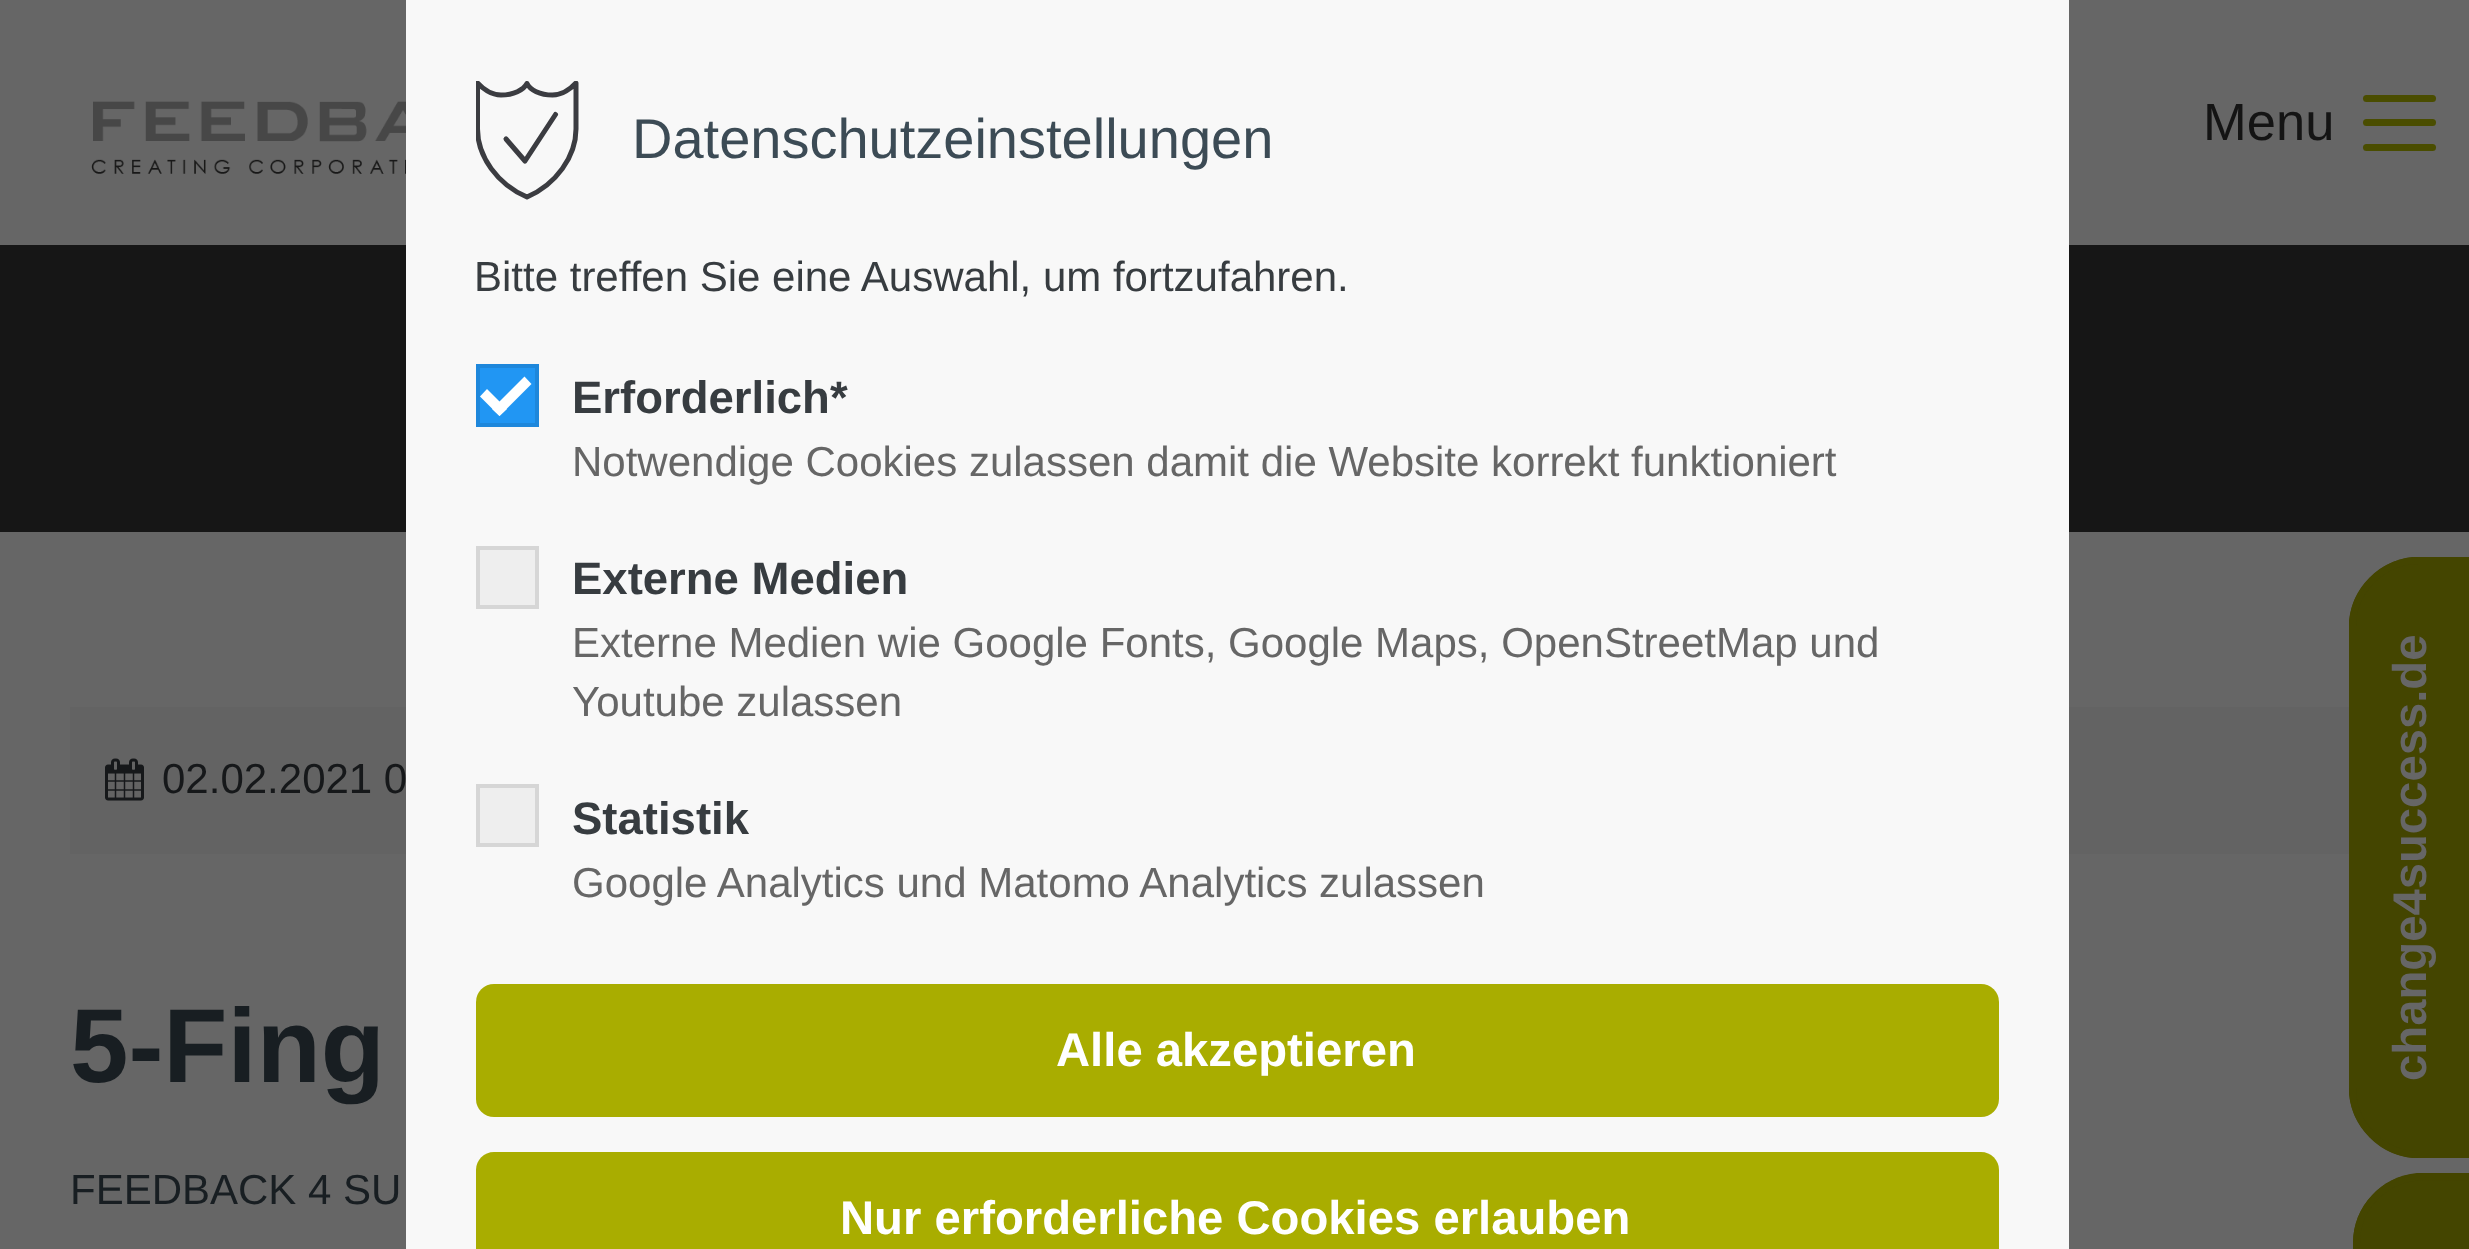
(async () => {
  const canvas = document.querySelector("canvas");
  canvas.width = 2469;
  canvas.height = 1249;
  const ctx = canvas.getContext("2d");
  ctx.miterLimit = 4;
  ctx.fontKerning = "normal";
  async function loadImage(src) {
    const img = new Image();
    img.src = src;
    await img.decode();
    return img;
  }
  let path;

  ctx.fillStyle = "#666666";
  ctx.fillRect(0, 0, 2469, 1249);
  ctx.drawImage(await loadImage("img/1.png"), 91, 101, 315, 73);
  ctx.fillStyle = "#4a4d00";
  ctx.beginPath();
  ctx.roundRect(2363, 119, 73, 7, 3.5);
  ctx.fill();
  ctx.beginPath();
  ctx.roundRect(2363, 95, 73, 7, 3.5);
  ctx.fill();
  ctx.beginPath();
  ctx.roundRect(2363, 144, 73, 7, 3.5);
  ctx.fill();
  ctx.fillStyle = "#161616";
  ctx.fillRect(0, 245, 2469, 287);
  ctx.fillStyle = "#636363";
  ctx.fillRect(70, 707, 2279, 147);
  ctx.drawImage(await loadImage("img/2.png"), 105, 758, 39, 43);
  ctx.fillStyle = "#444500";
  path = new Path2D("M2413 1158C2380 1155 2352 1127 2349 1094V621C2352 588 2380 560 2413 557H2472V1158Z");
  ctx.fill(path);
  ctx.save();
  path = new Path2D("M2349 1158V557H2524V1158Z");
  ctx.clip(path);
  path = new Path2D("M2352.5 1088V627C2352.5 590.5 2382.5 560.5 2419 560.5H2468V1154.5H2419C2382.5 1154.5 2352.5 1124.5 2352.5 1088Z");
  ctx.strokeStyle = "#444500";
  ctx.lineWidth = 7;
  ctx.stroke(path);
  ctx.restore();
  path = new Path2D("M2353 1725C2353 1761 2381 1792 2417 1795H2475V1173H2417C2381 1176 2353 1207 2353 1243Z");
  ctx.fill(path);
  ctx.save();
  path = new Path2D("M2353 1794.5V1173.5H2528V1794.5Z");
  ctx.clip(path);
  path = new Path2D("M2356.5 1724.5V1243.5C2356.5 1206.5 2386 1177 2423 1177H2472V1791H2423C2386 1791 2356.5 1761.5 2356.5 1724.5Z");
  ctx.strokeStyle = "#444500";
  ctx.lineWidth = 7;
  ctx.stroke(path);
  ctx.restore();
  ctx.fillStyle = "#f8f8f8";
  ctx.fillRect(406, 0, 1663, 1249);
  ctx.save();
  ctx.beginPath();
  ctx.rect(476, 81, 105, 119);
  ctx.clip();
  path = new Path2D("M527 197C497.5 184.5 477.5 156.5 477.5 129V83C482 88 491 95 501 95C513.5 95 523.5 90 527 83.5C530 90 540 95 552.5 95C562.5 95 571.5 88 576 83V129C576 156.5 556 184.5 527 197Z");
  ctx.strokeStyle = "#3b3c41";
  ctx.lineWidth = 5;
  ctx.lineCap = "round";
  ctx.lineJoin = "round";
  ctx.stroke(path);
  ctx.restore();
  path = new Path2D("M506 139L525 161L555.5 114.5");
  ctx.strokeStyle = "#3b3c41";
  ctx.lineWidth = 5;
  ctx.lineCap = "round";
  ctx.lineJoin = "round";
  ctx.stroke(path);
  ctx.fillStyle = "#2196f3";
  ctx.beginPath();
  ctx.rect(478, 366, 59, 59);
  ctx.fill();
  ctx.strokeStyle = "#1e87db";
  ctx.lineWidth = 4;
  ctx.lineJoin = "miter";
  ctx.stroke();
  ctx.fillStyle = "#ffffff";
  path = new Path2D("M524.5 376.5L531.5 384L499.5 416L492 409Z");
  ctx.fill(path);
  path = new Path2D("M487 389L507 409L499.5 416L480 396.5Z");
  ctx.fill(path);
  ctx.fillStyle = "#eeeeee";
  ctx.beginPath();
  ctx.rect(478, 548, 59, 59);
  ctx.fill();
  ctx.strokeStyle = "#d6d6d6";
  ctx.stroke();
  ctx.beginPath();
  ctx.rect(478, 786, 59, 59);
  ctx.fill();
  ctx.stroke();
  ctx.fillStyle = "#a9ad00";
  ctx.beginPath();
  ctx.roundRect(476, 984, 1523, 133, 18);
  ctx.fill();
  path = new Path2D("M494 1152H1981C1991 1152 1999 1160 1999 1170V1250H476V1170C476 1160 484 1152 494 1152Z");
  ctx.fill(path);
  ctx.font = "52.5px Liberation Sans";
  ctx.fillStyle = "#141414";
  ctx.fillText("Menu", 2203, 140);
  ctx.font = "42px Liberation Sans";
  ctx.fillStyle = "#16181a";
  ctx.fillText("02.02.2021 0", 162, 793);
  ctx.font = "bold 105px Liberation Sans";
  ctx.fillStyle = "#181e22";
  ctx.fillText("5-Fing", 70, 1082);
  ctx.font = "42px Liberation Sans";
  ctx.fillText("FEEDBACK 4 SU", 70, 1204);
  ctx.font = "bold 47.25px Liberation Sans";
  ctx.fillStyle = "#666666";
  ctx.save();
  ctx.translate(2426, 1081);
  ctx.rotate(-90 * Math.PI / 180);
  ctx.fillText("change4success.de", 0, 0);
  ctx.restore();
  ctx.font = "56px Liberation Sans";
  ctx.fillStyle = "#3c4b55";
  ctx.fillText("Datenschutzeinstellungen", 632, 158);
  ctx.font = "42px Liberation Sans";
  ctx.fillStyle = "#373c40";
  ctx.fillText("Bitte treffen Sie eine Auswahl, um fortzufahren.", 474, 291);
  ctx.font = "bold 45.5px Liberation Sans";
  ctx.fillText("Erforderlich*", 572, 413);
  ctx.font = "42px Liberation Sans";
  ctx.fillStyle = "#666666";
  ctx.fillText("Notwendige Cookies zulassen damit die Website korrekt funktioniert", 572, 476);
  ctx.font = "bold 45.5px Liberation Sans";
  ctx.fillStyle = "#373c40";
  ctx.fillText("Externe Medien", 572, 594);
  ctx.font = "42px Liberation Sans";
  ctx.fillStyle = "#666666";
  ctx.fillText("Externe Medien wie Google Fonts, Google Maps, OpenStreetMap und", 572, 657);
  ctx.fillText("Youtube zulassen", 572, 716);
  ctx.font = "bold 45.5px Liberation Sans";
  ctx.fillStyle = "#373c40";
  ctx.fillText("Statistik", 572, 834);
  ctx.font = "42px Liberation Sans";
  ctx.fillStyle = "#666666";
  ctx.fillText("Google Analytics und Matomo Analytics zulassen", 572, 897);
  ctx.font = "bold 47.25px Liberation Sans";
  ctx.fillStyle = "#ffffff";
  ctx.fillText("Alle akzeptieren", 1056, 1066);
  ctx.fillText("Nur erforderliche Cookies erlauben", 840, 1234);
})();
